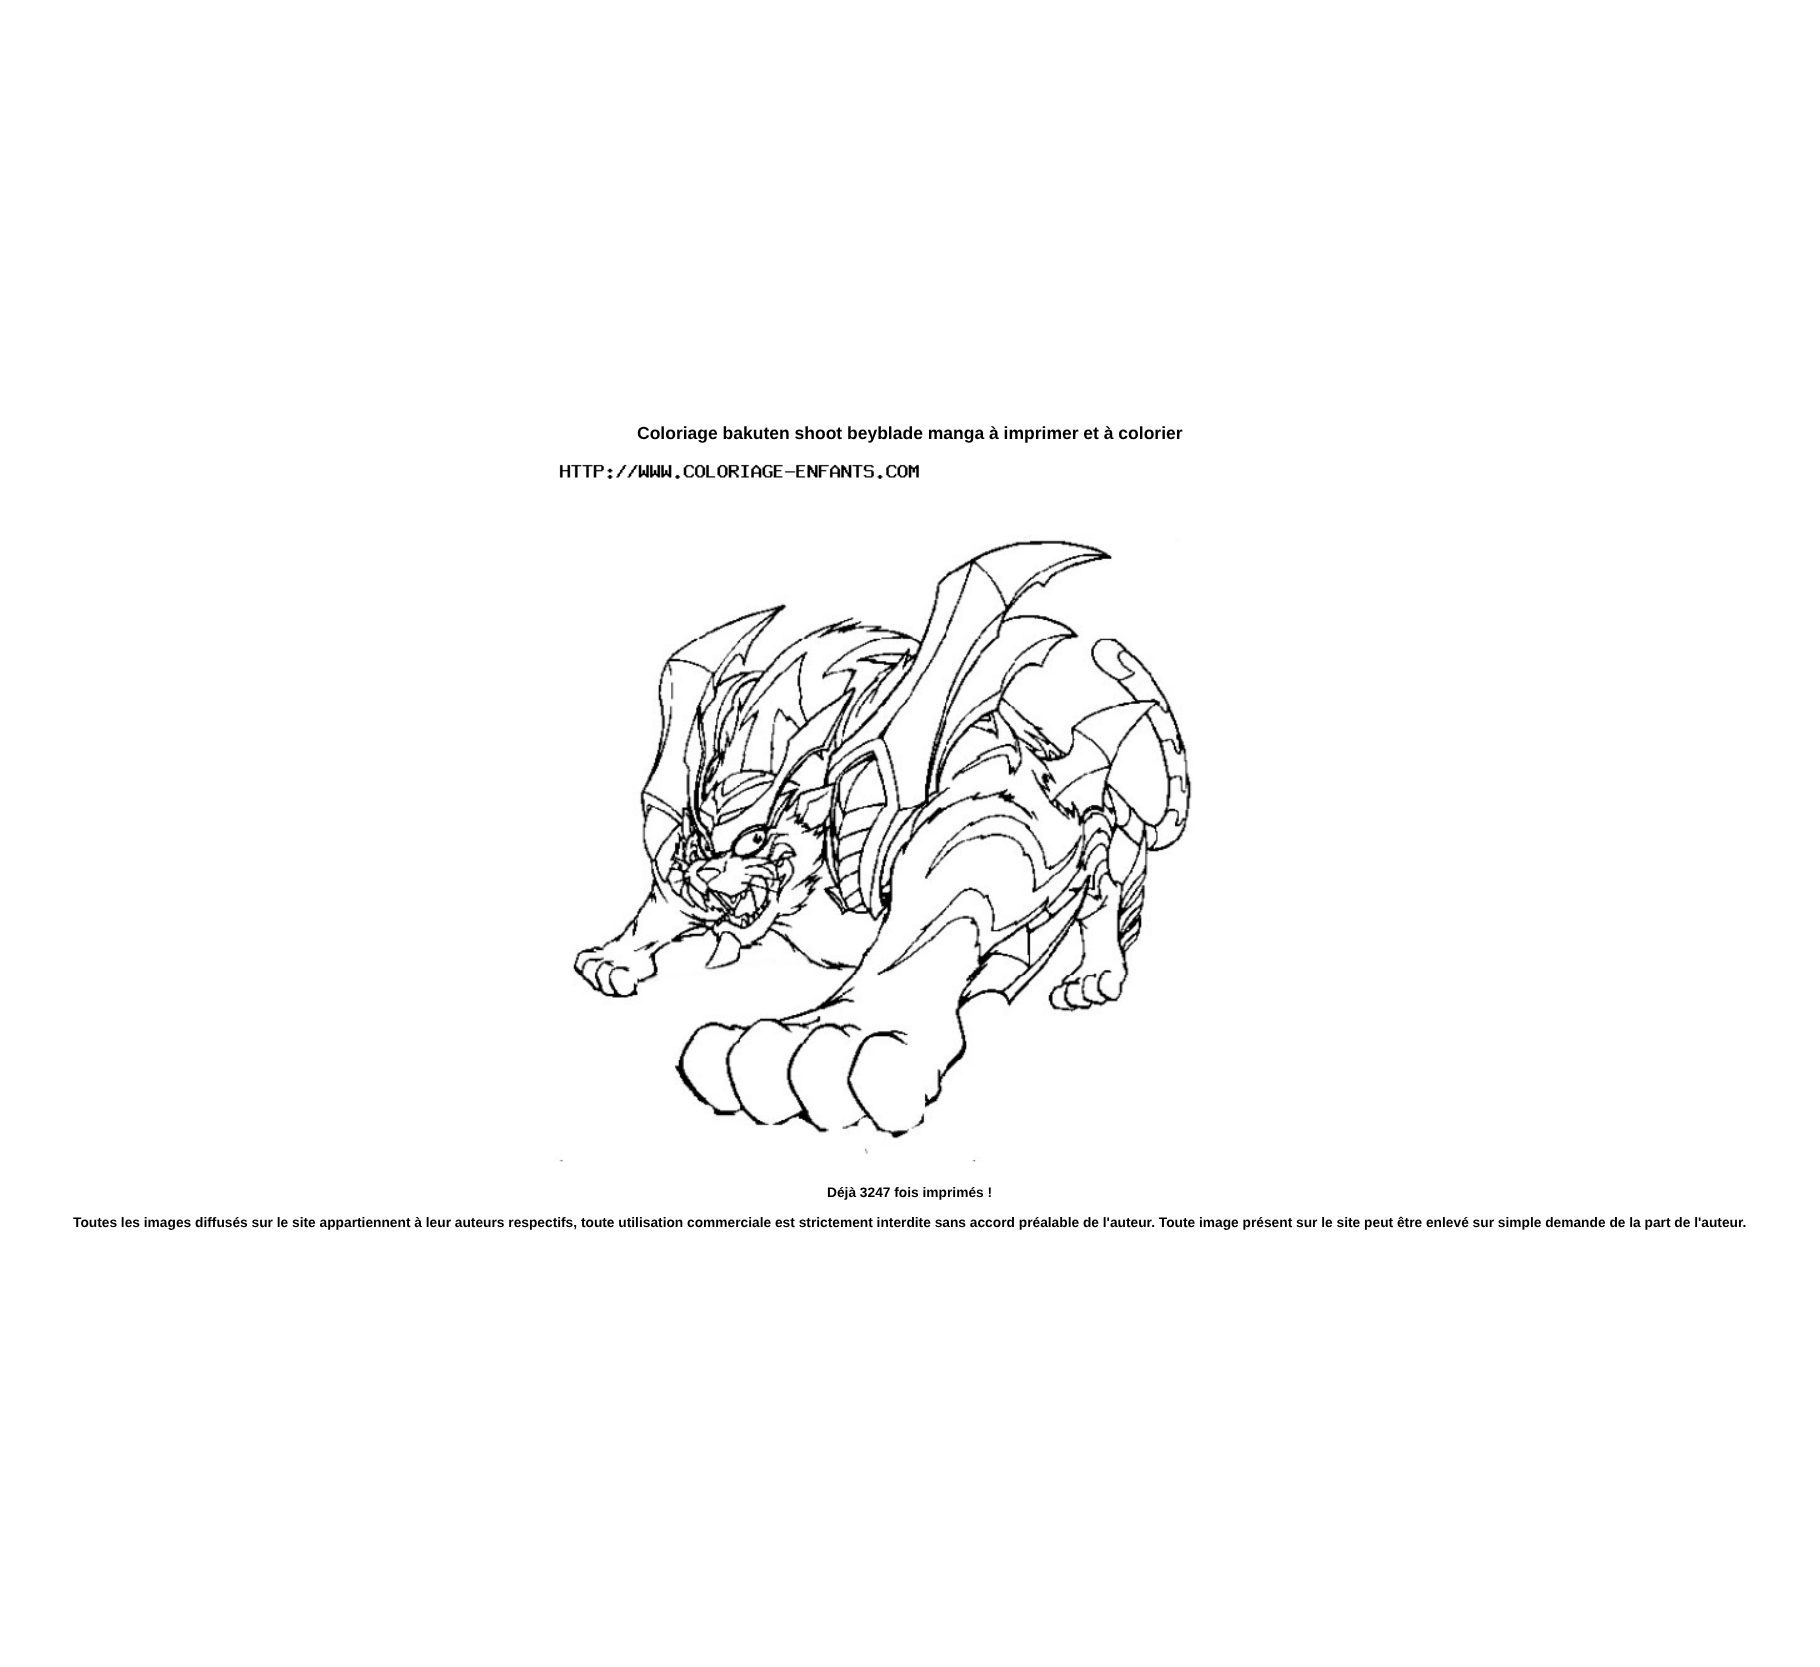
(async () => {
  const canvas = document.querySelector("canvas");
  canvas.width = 1820;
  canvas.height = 1667;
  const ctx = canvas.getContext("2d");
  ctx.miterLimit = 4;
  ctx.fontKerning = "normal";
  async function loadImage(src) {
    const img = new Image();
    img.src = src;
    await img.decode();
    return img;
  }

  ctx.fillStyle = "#ffffff";
  ctx.fillRect(0, 0, 1820, 1667);
  ctx.drawImage(await loadImage("img/1.png"), 554, 464, 639, 698);
  ctx.font = "bold 17.5px Liberation Sans";
  ctx.fillStyle = "#000000";
  ctx.fillText("Coloriage bakuten shoot beyblade manga à imprimer et à colorier", 637, 439);
  ctx.font = "bold 13.75px Liberation Sans";
  ctx.fillText("Déjà 3247 fois imprimés !", 827, 1197);
  ctx.fillText("Toutes les images diffusés sur le site appartiennent à leur auteurs respectifs, toute utilisation commerciale est strictement interdite sans accord préalable de l'auteur. Toute image présent sur le site peut être enlevé sur simple demande de la part de l'auteur.", 73, 1227);
})();
